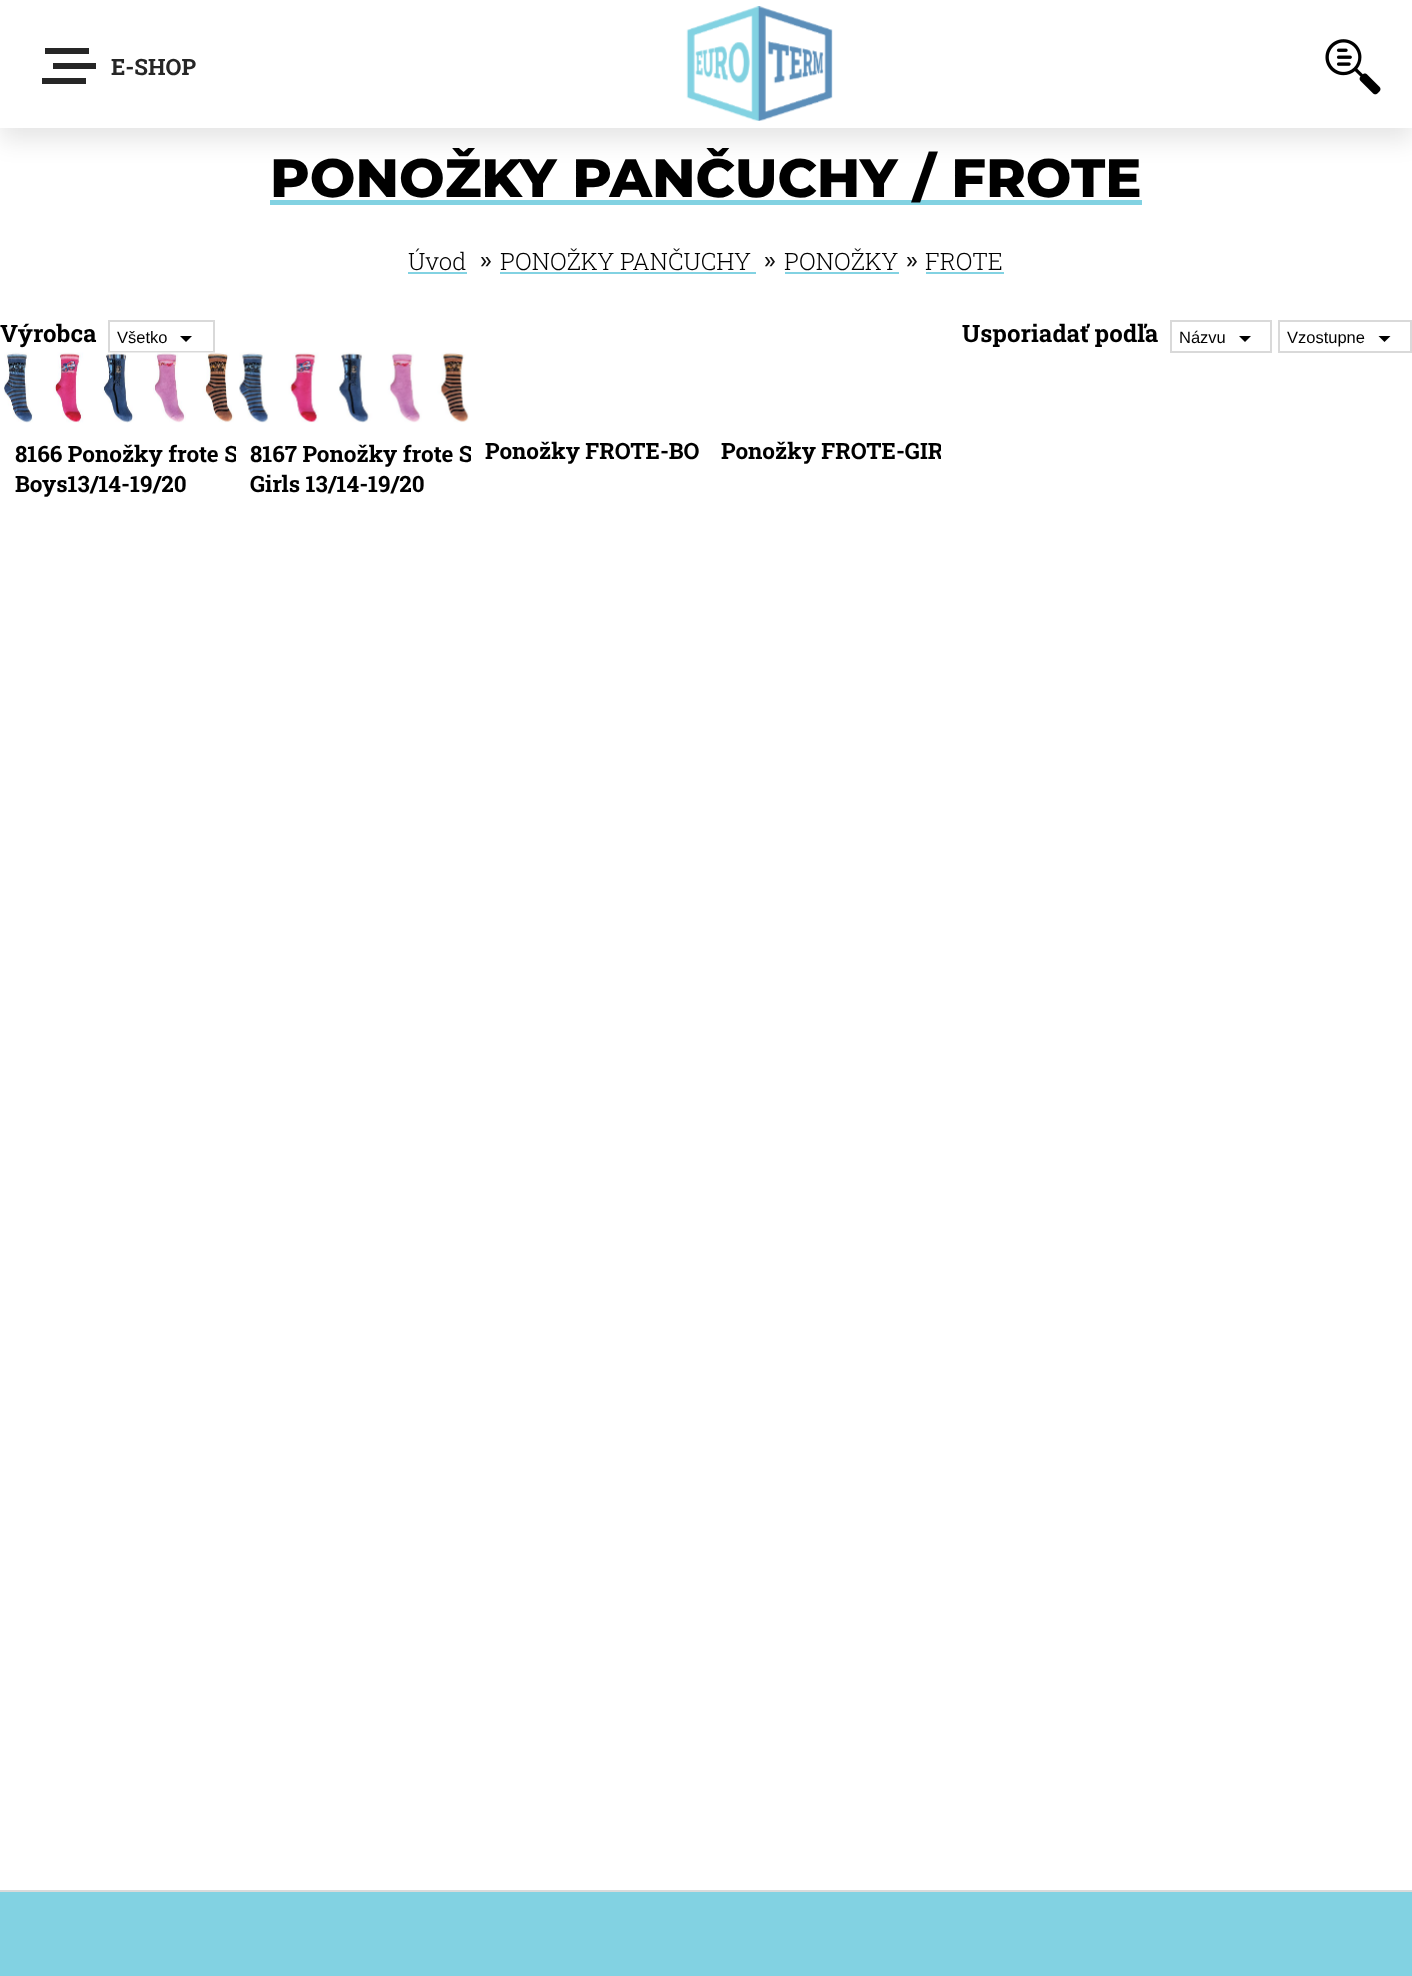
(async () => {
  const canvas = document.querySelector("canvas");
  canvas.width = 1412;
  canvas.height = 1976;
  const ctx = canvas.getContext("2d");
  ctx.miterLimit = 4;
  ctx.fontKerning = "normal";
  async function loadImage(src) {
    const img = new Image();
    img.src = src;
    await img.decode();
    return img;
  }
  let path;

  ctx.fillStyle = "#ffffff";
  ctx.fillRect(0, 0, 1412, 1976);
  ctx.fillStyle = "rgba(0, 0, 0, 0.1)";
  ctx.filter = "blur(12px)";
  ctx.beginPath();
  ctx.rect(0, 12, 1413, 128);
  ctx.fill();
  ctx.filter = "none";
  for (const [x, y, w, h, color] of [
    [0, 0, 1412, 128, "#ffffff"],
    [45, 48, 44, 6, "#262626"],
    [53, 63, 43, 6, "#262626"],
    [42, 78, 44, 6, "#262626"],
  ]) {
    ctx.fillStyle = color;
    ctx.fillRect(x, y, w, h);
  }
  ctx.drawImage(await loadImage("img/1.png"), 686, 6, 147, 115);
  ctx.drawImage(await loadImage("img/2.png"), 1325, 39, 56, 56);
  for (const [x, y, w, h, color] of [
    [270, 200, 872, 5, "#82d2e2"],
    [408, 272, 59, 2, "#82d2e2"],
    [500, 272, 256, 2, "#82d2e2"],
    [785, 272, 114, 2, "#82d2e2"],
    [926, 272, 78, 2, "#82d2e2"],
  ]) {
    ctx.fillStyle = color;
    ctx.fillRect(x, y, w, h);
  }
  ctx.strokeStyle = "#d9d9d9";
  ctx.lineWidth = 2;
  ctx.strokeRect(109, 321, 105, 31);
  ctx.fillStyle = "#000000";
  path = new Path2D("M180 336H192L186 342Z");
  ctx.fill(path);
  ctx.strokeRect(1171, 321, 100, 31);
  path = new Path2D("M1239 336H1251L1245 342Z");
  ctx.fill(path);
  ctx.strokeRect(1279, 321, 132, 31);
  path = new Path2D("M1378.5 336H1390.5L1384.5 342Z");
  ctx.fill(path);
  ctx.drawImage(await loadImage("img/3.png"), 4, 352, 230, 71);
  ctx.drawImage(await loadImage("img/4.png"), 239, 352, 230, 71);
  ctx.fillStyle = "#82d2e2";
  ctx.fillRect(0, 1892, 1412, 84);
  ctx.fillStyle = "#dadada";
  ctx.fillRect(0, 1890, 1412, 2);
  ctx.font = "bold 22.5px Roboto Slab";
  ctx.fillStyle = "#262626";
  ctx.fillText("E-SHOP", 111, 75);
  ctx.font = "800 54px Montserrat";
  ctx.fillStyle = "#000000";
  ctx.fillText("PONOŽKY PANČUCHY / FROTE", 270, 197);
  ctx.font = "300 24px Roboto Slab";
  ctx.fillText("Úvod", 408, 270);
  ctx.font = "500 24px Montserrat";
  ctx.fillStyle = "#101010";
  ctx.fillText("»", 480, 268);
  ctx.font = "300 24px Roboto Slab";
  ctx.fillStyle = "#000000";
  ctx.fillText("PONOŽKY PANČUCHY", 500, 270);
  ctx.font = "500 24px Montserrat";
  ctx.fillStyle = "#101010";
  ctx.fillText("»", 764, 268);
  ctx.font = "300 24px Roboto Slab";
  ctx.fillStyle = "#000000";
  ctx.fillText("PONOŽKY", 784, 270);
  ctx.font = "500 24px Montserrat";
  ctx.fillStyle = "#101010";
  ctx.fillText("»", 906, 268);
  ctx.font = "300 24px Roboto Slab";
  ctx.fillStyle = "#000000";
  ctx.fillText("FROTE", 925, 270);
  ctx.font = "bold 24px Roboto Slab";
  ctx.fillText("Výrobca", 0, 342);
  ctx.font = "16.5px Liberation Sans";
  ctx.fillText("Všetko", 117, 343);
  ctx.font = "bold 24px Roboto Slab";
  ctx.fillText("Usporiadať podľa", 962, 342);
  ctx.font = "16.5px Liberation Sans";
  ctx.fillText("Názvu", 1179, 343);
  ctx.fillText("Vzostupne", 1287, 343);
  ctx.save();
  ctx.beginPath();
  ctx.rect(0, 438, 236, 60);
  ctx.clip();
  ctx.font = "bold 22.5px Roboto Slab";
  ctx.fillText("8166 Ponožky frote S", 15, 462);
  ctx.restore();
  ctx.font = "bold 22.5px Roboto Slab";
  ctx.fillText("Boys13/14-19/20", 15, 492);
  ctx.save();
  ctx.beginPath();
  ctx.rect(236, 438, 235, 60);
  ctx.clip();
  ctx.fillText("8167 Ponožky frote S", 250, 462);
  ctx.restore();
  ctx.fillText("Girls 13/14-19/20", 250, 492);
  ctx.fillText("Ponožky FROTE-BO", 485, 459);
  ctx.save();
  ctx.beginPath();
  ctx.rect(705, 435, 236, 60);
  ctx.clip();
  ctx.fillText("Ponožky FROTE-GIR", 721, 459);
  ctx.restore();
})();
